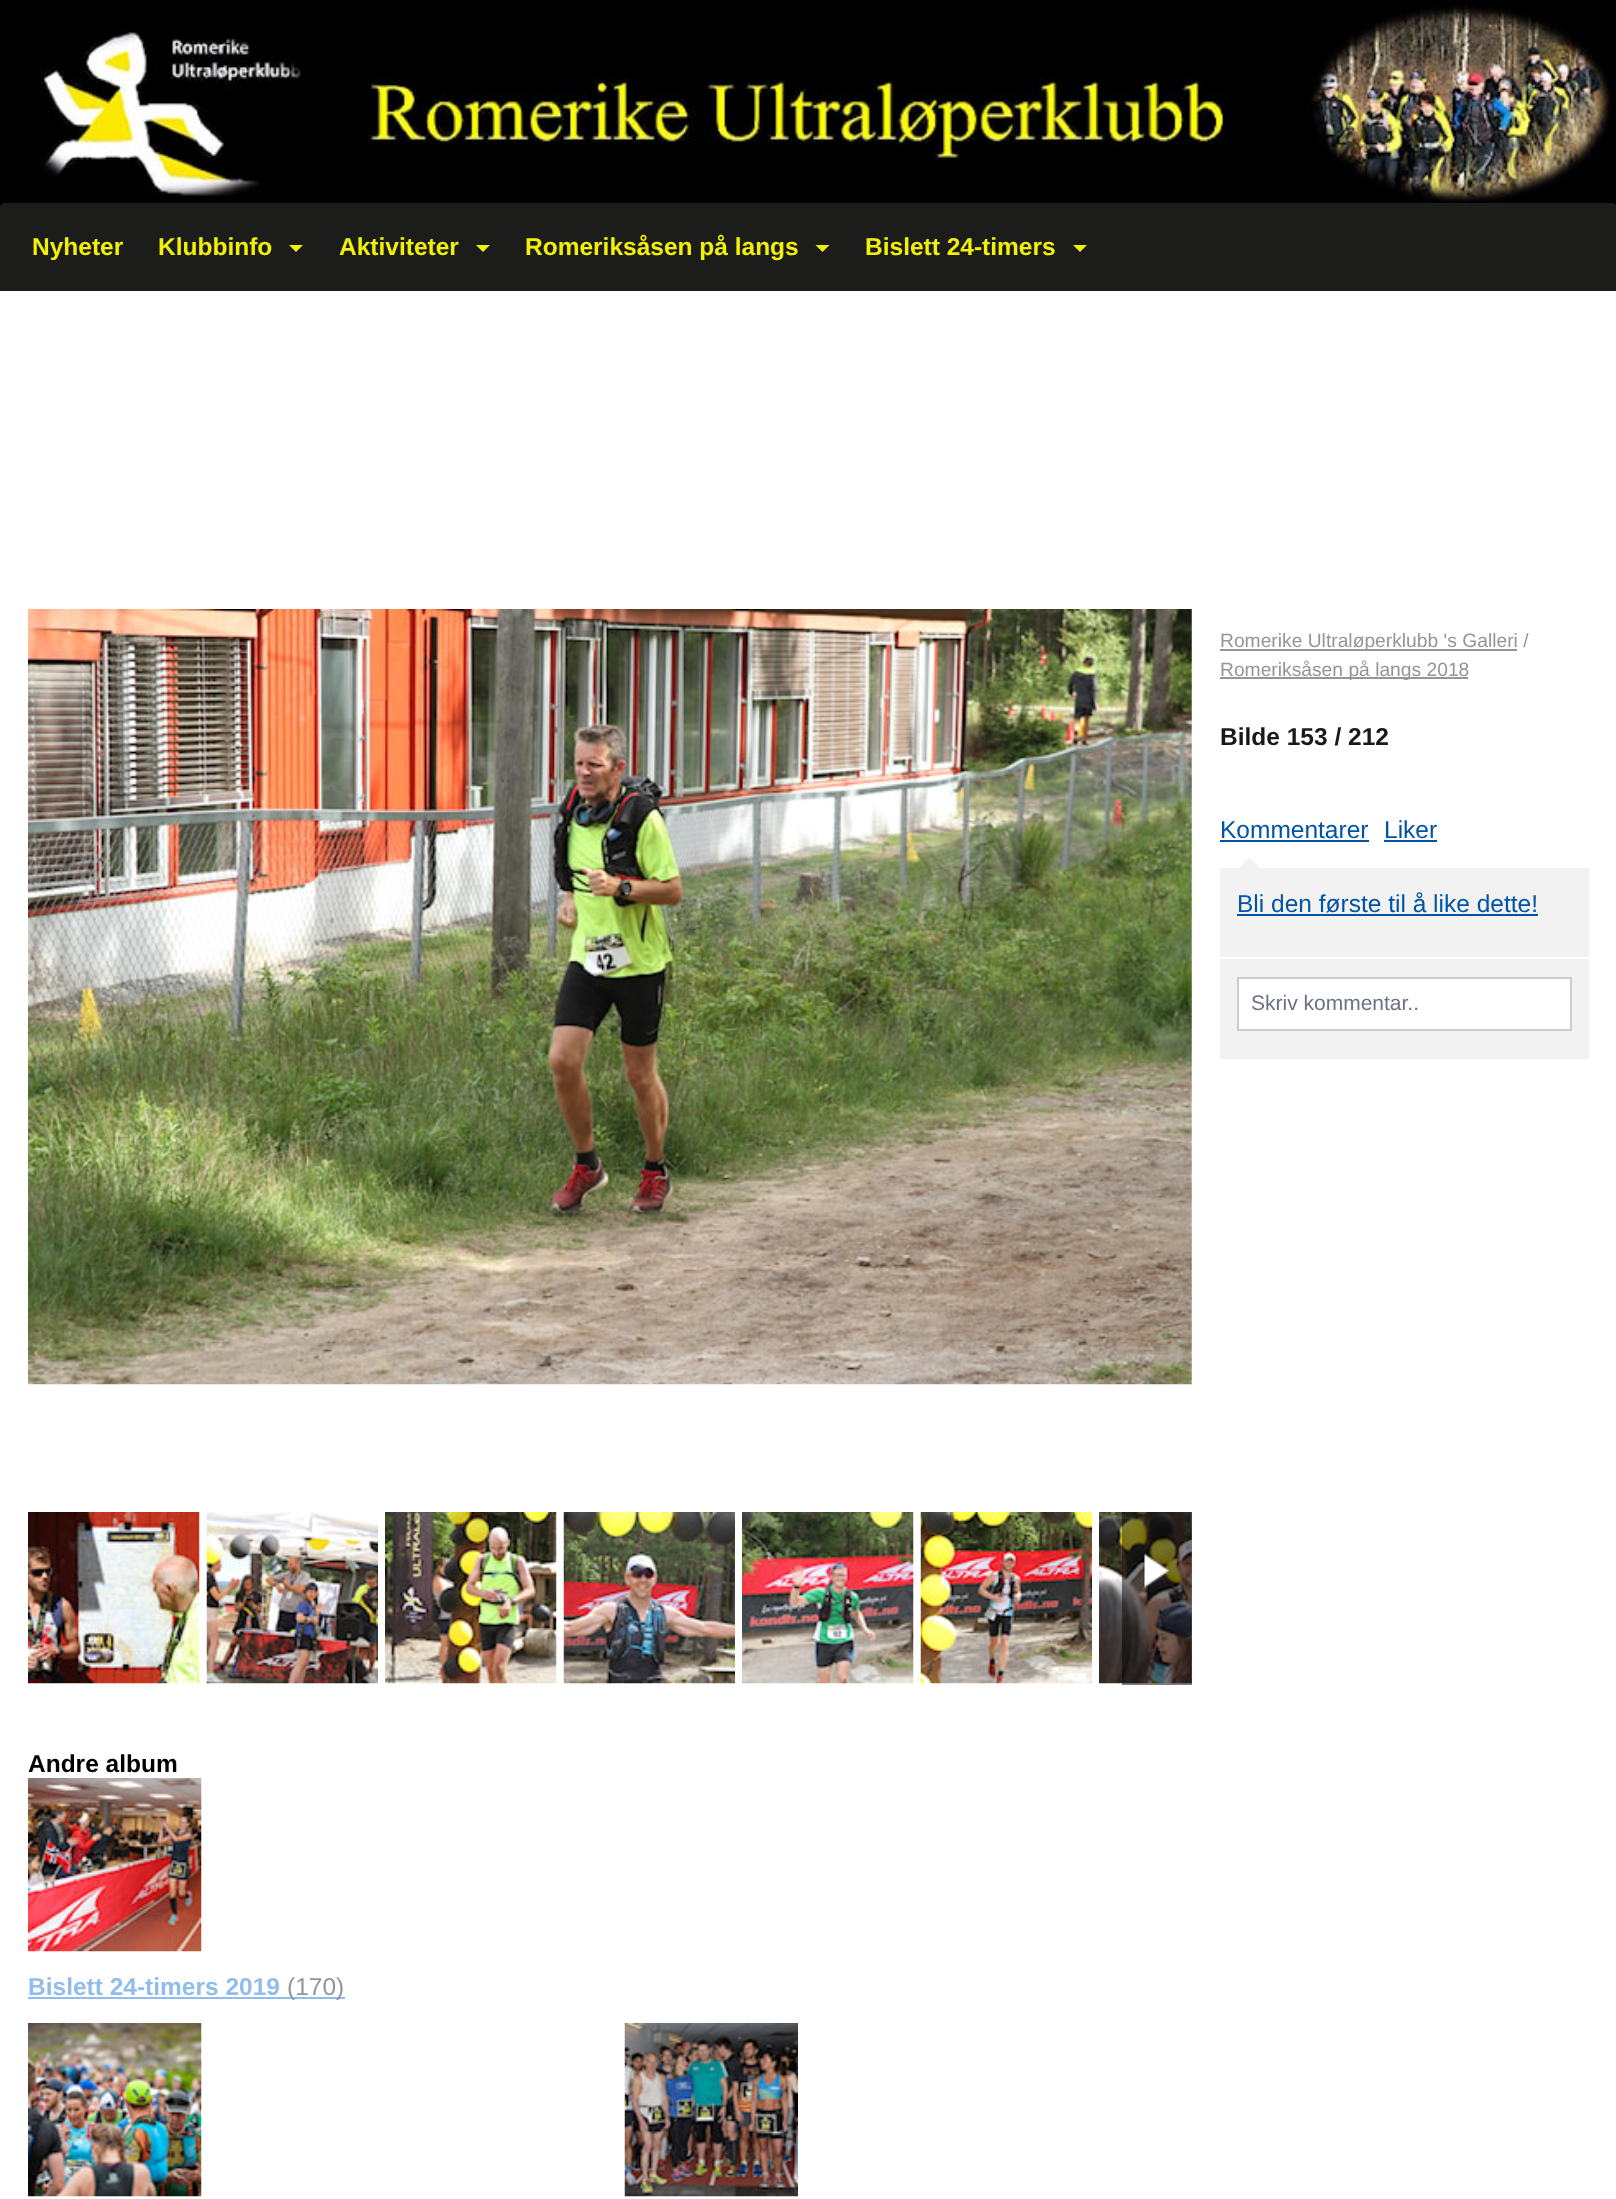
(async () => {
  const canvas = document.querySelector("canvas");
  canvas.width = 1616;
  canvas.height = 2199;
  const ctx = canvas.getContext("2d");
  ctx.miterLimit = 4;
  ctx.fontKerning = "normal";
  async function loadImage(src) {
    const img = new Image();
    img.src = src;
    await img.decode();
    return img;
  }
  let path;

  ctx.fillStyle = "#000000";
  ctx.fillRect(0, 0, 1616, 2199);
  ctx.drawImage(await loadImage("img/1.png"), 40, 0, 1572, 203);
  ctx.fillStyle = "#1c1c1b";
  path = new Path2D("M5 203H1612C1615 203 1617 205 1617 208V291H0V208C0 205 2 203 5 203Z");
  ctx.fill(path);
  ctx.fillStyle = "#f0f008";
  path = new Path2D("M289 245H303L296 252Z");
  ctx.fill(path);
  path = new Path2D("M476 245H490L483 252Z");
  ctx.fill(path);
  path = new Path2D("M815.5 245H829.5L822.5 252Z");
  ctx.fill(path);
  path = new Path2D("M1073 245H1087L1080 252Z");
  ctx.fill(path);
  for (const [x, y, w, h, color] of [
    [0, 291, 1616, 1908, "#ffffff"],
    [1220, 649, 297, 2, "#959595"],
    [1220, 677, 248, 2, "#959595"],
    [1220, 840, 149, 2, "#0054a6"],
    [1384, 840, 53, 2, "#0054a6"],
  ]) {
    ctx.fillStyle = color;
    ctx.fillRect(x, y, w, h);
  }
  ctx.drawImage(await loadImage("img/2.png"), 1238, 857, 24, 11);
  for (const [x, y, w, h, color] of [
    [1220, 868, 369, 89, "#f2f2f2"],
    [1237, 914, 301, 2, "#0054a6"],
    [1220, 959, 369, 100, "#f2f2f2"],
  ]) {
    ctx.fillStyle = color;
    ctx.fillRect(x, y, w, h);
  }
  ctx.fillStyle = "#ffffff";
  ctx.beginPath();
  ctx.rect(1238, 978, 333, 52);
  ctx.fill();
  ctx.strokeStyle = "#cccccc";
  ctx.lineWidth = 2;
  ctx.stroke();
  ctx.drawImage(await loadImage("img/3.png"), 28, 609, 1164, 776);
  ctx.drawImage(await loadImage("img/4.png"), 28, 1512, 172, 172);
  ctx.drawImage(await loadImage("img/5.png"), 206, 1512, 172, 172);
  ctx.drawImage(await loadImage("img/6.png"), 385, 1512, 172, 172);
  ctx.drawImage(await loadImage("img/7.png"), 563, 1512, 172, 172);
  ctx.drawImage(await loadImage("img/8.png"), 742, 1512, 172, 172);
  ctx.drawImage(await loadImage("img/9.png"), 920, 1512, 172, 172);
  ctx.drawImage(await loadImage("img/10.png"), 1099, 1512, 93, 172);
  ctx.fillStyle = "rgba(0, 0, 0, 0.5)";
  ctx.fillRect(1122, 1512, 70, 173);
  ctx.drawImage(await loadImage("img/11.png"), 1143, 1553, 28, 36);
  ctx.drawImage(await loadImage("img/12.png"), 28, 1778, 174, 174);
  ctx.fillStyle = "#90bdec";
  ctx.fillRect(28, 1997, 317, 2);
  ctx.drawImage(await loadImage("img/13.png"), 28, 2023, 174, 174);
  ctx.drawImage(await loadImage("img/14.png"), 624, 2023, 174, 174);
  ctx.font = "bold 24.5px Liberation Sans";
  ctx.fillStyle = "#f0f008";
  for (const [text, x, y] of [
    ["Nyheter", 32, 255],
    ["Klubbinfo", 158, 255],
    ["Aktiviteter", 339, 255],
    ["Romeriksåsen på langs", 525, 255],
    ["Bislett 24-timers", 865, 255],
  ]) {
    ctx.fillText(text, x, y);
  }
  ctx.font = "19.25px Liberation Sans";
  ctx.fillStyle = "#959595";
  ctx.fillText("Romerike Ultraløperklubb 's Galleri /", 1220, 647);
  ctx.fillText("Romeriksåsen på langs 2018", 1220, 676);
  ctx.font = "bold 24.5px Liberation Sans";
  ctx.fillStyle = "#191919";
  ctx.fillText("Bilde 153 / 212", 1220, 745);
  ctx.font = "24.5px Liberation Sans";
  ctx.fillStyle = "#0054a6";
  for (const [text, x, y] of [
    ["Kommentarer", 1220, 838],
    ["Liker", 1384, 838],
    ["Bli den første til å like dette!", 1237, 912],
  ]) {
    ctx.fillText(text, x, y);
  }
  ctx.font = "21px Liberation Sans";
  ctx.fillStyle = "#6b7280";
  ctx.fillText("Skriv kommentar..", 1251, 1010);
  ctx.font = "bold 24.5px Liberation Sans";
  ctx.fillStyle = "#000000";
  ctx.fillText("Andre album", 28, 1772);
  ctx.fillStyle = "#90bdec";
  ctx.fillText("Bislett 24-timers 2019", 28, 1995);
  ctx.font = "24.5px Liberation Sans";
  ctx.fillStyle = "#959595";
  ctx.fillText("(170)", 287, 1995);
})();
